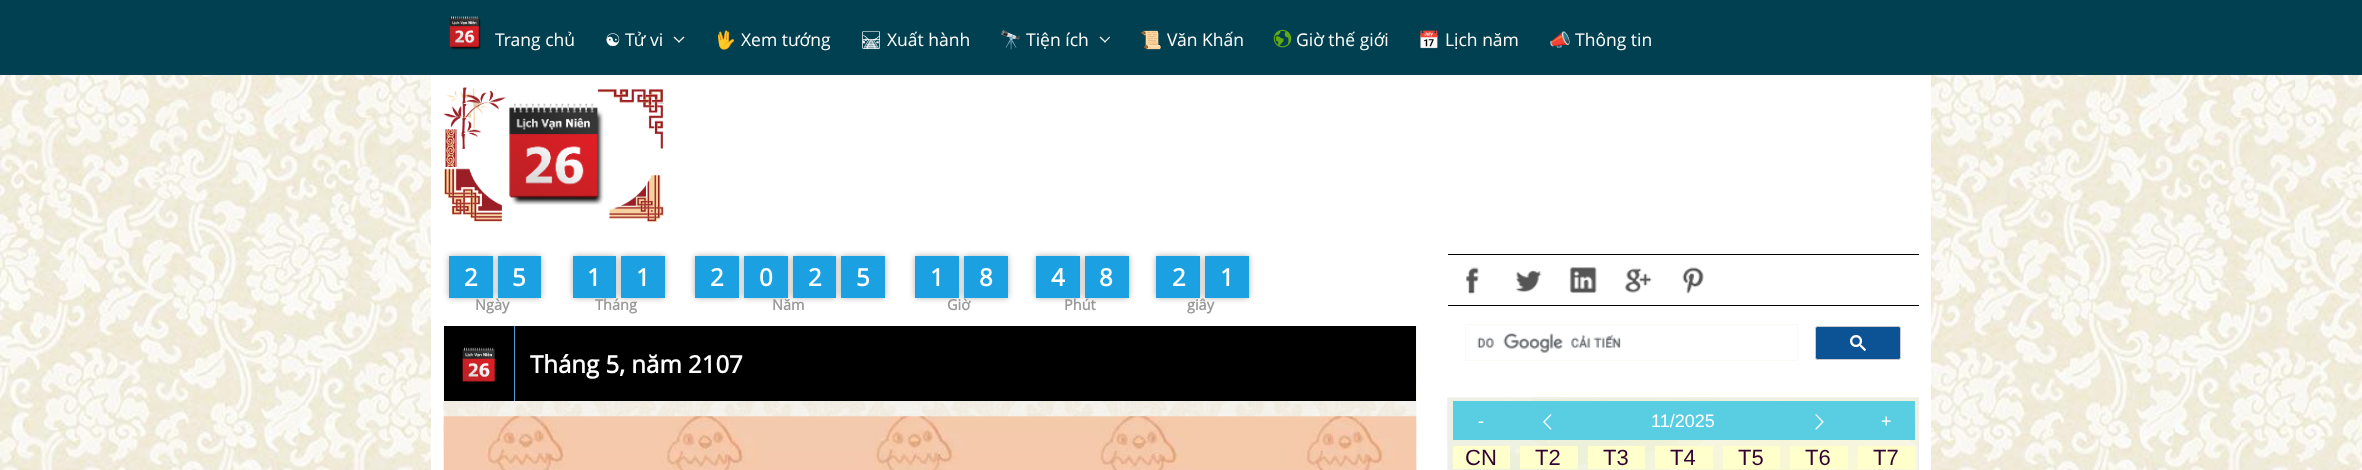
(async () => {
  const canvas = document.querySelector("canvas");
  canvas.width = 2362;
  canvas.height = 470;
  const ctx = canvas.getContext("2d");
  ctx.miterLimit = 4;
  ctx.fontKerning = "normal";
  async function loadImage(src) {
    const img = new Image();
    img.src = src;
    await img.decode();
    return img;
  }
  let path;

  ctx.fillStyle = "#ffffff";
  ctx.fillRect(0, 0, 2362, 470);
  ctx.drawImage(await loadImage("img/1.png"), 0, 75, 2362, 395);
  ctx.fillStyle = "#004050";
  ctx.fillRect(0, 0, 2362, 75);
  ctx.drawImage(await loadImage("img/2.png"), 449, 16, 32, 34);
  ctx.fillStyle = "#ffffff";
  path = new Path2D("M678 42L683.5 36.5L684.5 37.5L679 42.5Z");
  ctx.fill(path);
  path = new Path2D("M673.5 37.5L674.5 36.5L680 42L679 42.5Z");
  ctx.fill(path);
  path = new Path2D("M1104 42L1109.5 36.5L1110 37.5L1105 42.5Z");
  ctx.fill(path);
  path = new Path2D("M1099.5 37.5L1100.5 36.5L1106 42L1105 42.5Z");
  ctx.fill(path);
  ctx.drawImage(await loadImage("img/3.png"), 1273, 29, 19, 19);
  ctx.fillRect(431, 75, 1500, 395);
  ctx.drawImage(await loadImage("img/4.png"), 443, 87, 221, 136);
  ctx.drawImage(await loadImage("img/5.png"), 509, 103, 95, 102);
  ctx.fillStyle = "rgba(0, 0, 0, 0.3)";
  ctx.filter = "blur(3px)";
  ctx.beginPath();
  ctx.rect(449, 256, 44, 42);
  ctx.fill();
  ctx.filter = "none";
  ctx.fillStyle = "#1ba1e2";
  ctx.fillRect(449, 256, 44, 42);
  ctx.fillStyle = "rgba(0, 0, 0, 0.3)";
  ctx.filter = "blur(3px)";
  ctx.beginPath();
  ctx.rect(498, 256, 43, 42);
  ctx.fill();
  ctx.filter = "none";
  ctx.fillStyle = "#1ba1e2";
  ctx.fillRect(498, 256, 43, 42);
  ctx.fillStyle = "rgba(0, 0, 0, 0.3)";
  ctx.filter = "blur(3px)";
  ctx.beginPath();
  ctx.rect(573, 256, 43, 42);
  ctx.fill();
  ctx.filter = "none";
  ctx.fillStyle = "#1ba1e2";
  ctx.fillRect(573, 256, 43, 42);
  ctx.fillStyle = "rgba(0, 0, 0, 0.3)";
  ctx.filter = "blur(3px)";
  ctx.beginPath();
  ctx.rect(621, 256, 44, 42);
  ctx.fill();
  ctx.filter = "none";
  ctx.fillStyle = "#1ba1e2";
  ctx.fillRect(621, 256, 44, 42);
  ctx.fillStyle = "rgba(0, 0, 0, 0.3)";
  ctx.filter = "blur(3px)";
  ctx.beginPath();
  ctx.rect(695, 256, 44, 42);
  ctx.fill();
  ctx.filter = "none";
  ctx.fillStyle = "#1ba1e2";
  ctx.fillRect(695, 256, 44, 42);
  ctx.fillStyle = "rgba(0, 0, 0, 0.3)";
  ctx.filter = "blur(3px)";
  ctx.beginPath();
  ctx.rect(744, 256, 44, 42);
  ctx.fill();
  ctx.filter = "none";
  ctx.fillStyle = "#1ba1e2";
  ctx.fillRect(744, 256, 44, 42);
  ctx.fillStyle = "rgba(0, 0, 0, 0.3)";
  ctx.filter = "blur(3px)";
  ctx.beginPath();
  ctx.rect(793, 256, 43, 42);
  ctx.fill();
  ctx.filter = "none";
  ctx.fillStyle = "#1ba1e2";
  ctx.fillRect(793, 256, 43, 42);
  ctx.fillStyle = "rgba(0, 0, 0, 0.3)";
  ctx.filter = "blur(3px)";
  ctx.beginPath();
  ctx.rect(841, 256, 44, 42);
  ctx.fill();
  ctx.filter = "none";
  ctx.fillStyle = "#1ba1e2";
  ctx.fillRect(841, 256, 44, 42);
  ctx.fillStyle = "rgba(0, 0, 0, 0.3)";
  ctx.filter = "blur(3px)";
  ctx.beginPath();
  ctx.rect(915, 256, 44, 42);
  ctx.fill();
  ctx.filter = "none";
  ctx.fillStyle = "#1ba1e2";
  ctx.fillRect(915, 256, 44, 42);
  ctx.fillStyle = "rgba(0, 0, 0, 0.3)";
  ctx.filter = "blur(3px)";
  ctx.beginPath();
  ctx.rect(964, 256, 44, 42);
  ctx.fill();
  ctx.filter = "none";
  ctx.fillStyle = "#1ba1e2";
  ctx.fillRect(964, 256, 44, 42);
  ctx.fillStyle = "rgba(0, 0, 0, 0.3)";
  ctx.filter = "blur(3px)";
  ctx.beginPath();
  ctx.rect(1036, 256, 44, 42);
  ctx.fill();
  ctx.filter = "none";
  ctx.fillStyle = "#1ba1e2";
  ctx.fillRect(1036, 256, 44, 42);
  ctx.fillStyle = "rgba(0, 0, 0, 0.3)";
  ctx.filter = "blur(3px)";
  ctx.beginPath();
  ctx.rect(1085, 256, 44, 42);
  ctx.fill();
  ctx.filter = "none";
  ctx.fillStyle = "#1ba1e2";
  ctx.fillRect(1085, 256, 44, 42);
  ctx.fillStyle = "rgba(0, 0, 0, 0.3)";
  ctx.filter = "blur(3px)";
  ctx.beginPath();
  ctx.rect(1156, 256, 44, 42);
  ctx.fill();
  ctx.filter = "none";
  ctx.fillStyle = "#1ba1e2";
  ctx.fillRect(1156, 256, 44, 42);
  ctx.fillStyle = "rgba(0, 0, 0, 0.3)";
  ctx.filter = "blur(3px)";
  ctx.beginPath();
  ctx.rect(1205, 256, 44, 42);
  ctx.fill();
  ctx.filter = "none";
  ctx.fillStyle = "#1ba1e2";
  ctx.fillRect(1205, 256, 44, 42);
  ctx.drawImage(await loadImage("img/6.png"), 443, 326, 974, 144);
  ctx.fillStyle = "#000000";
  ctx.fillRect(444, 326, 972, 75);
  ctx.drawImage(await loadImage("img/7.png"), 462, 347, 33, 35);
  ctx.fillStyle = "#4c9cd7";
  ctx.fillRect(514, 326, 1, 75);
  ctx.drawImage(await loadImage("img/8.png"), 443, 416, 974, 54);
  ctx.fillStyle = "#000000";
  ctx.fillRect(1448, 254, 471, 1);
  ctx.fillRect(1448, 305, 471, 1);
  ctx.drawImage(await loadImage("img/9.png"), 1466, 267, 13, 27);
  ctx.drawImage(await loadImage("img/10.png"), 1516, 270, 26, 23);
  ctx.drawImage(await loadImage("img/11.png"), 1569, 267, 28, 27);
  ctx.drawImage(await loadImage("img/12.png"), 1624, 268, 28, 25);
  ctx.drawImage(await loadImage("img/13.png"), 1682, 267, 22, 27);
  ctx.strokeStyle = "#fafaf0";
  ctx.strokeRect(1465.5, 324.5, 332, 36);
  ctx.drawImage(await loadImage("img/14.png"), 1477, 333, 144, 20);
  ctx.fillStyle = "#0b5394";
  ctx.beginPath();
  ctx.roundRect(1815.5, 326.5, 85, 33, 2);
  ctx.fill();
  ctx.strokeStyle = "#cccccc";
  ctx.stroke();
  ctx.drawImage(await loadImage("img/15.png"), 1850, 335, 16, 16);
  ctx.drawImage(await loadImage("img/16.png"), 1447, 397, 472, 73);
  ctx.strokeStyle = "#eeeeee";
  ctx.strokeRect(1448.5, 398.5, 470, 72);
  ctx.fillStyle = "#59cde2";
  ctx.fillRect(1453, 401, 462, 39);
  ctx.drawImage(await loadImage("img/17.png"), 1543, 414, 9, 16);
  ctx.drawImage(await loadImage("img/18.png"), 1815, 414, 9, 16);
  for (const [x, y, w, h, color] of [
    [1453, 446, 57, 23, "#ffffcc"],
    [1520, 446, 58, 23, "#ffffcc"],
    [1588, 446, 57, 23, "#ffffcc"],
    [1655, 446, 58, 23, "#ffffcc"],
    [1723, 446, 57, 23, "#ffffcc"],
    [1790, 446, 58, 23, "#ffffcc"],
    [1858, 446, 57, 23, "#ffffcc"],
  ]) {
    ctx.fillStyle = color;
    ctx.fillRect(x, y, w, h);
  }
  ctx.font = "17.5px Open Sans";
  ctx.fillStyle = "#ffffff";
  ctx.fillText("Trang chủ", 495, 46);
  ctx.font = "17.5px DejaVu Sans";
  ctx.fillText("☯", 605, 46);
  ctx.font = "17.5px Open Sans";
  ctx.fillText("Tử vi", 625, 46);
  ctx.font = "17.5px Noto Color Emoji";
  ctx.fillText("🖖", 714, 46);
  ctx.font = "17.5px Open Sans";
  ctx.fillText("Xem tướng", 741, 46);
  ctx.font = "17.5px Noto Emoji";
  ctx.fillText("🛤", 860, 46);
  ctx.font = "17.5px Open Sans";
  ctx.fillText("Xuất hành", 887, 46);
  ctx.font = "17.5px Noto Color Emoji";
  ctx.fillText("🔭", 1000, 46);
  ctx.font = "17.5px Open Sans";
  ctx.fillText("Tiện ích", 1026, 46);
  ctx.font = "17.5px Noto Color Emoji";
  ctx.fillText("📜", 1140, 46);
  ctx.font = "17.5px Open Sans";
  ctx.fillText("Văn Khấn", 1167, 46);
  ctx.fillText("Giờ thế giới", 1296, 46);
  ctx.font = "17.5px Noto Color Emoji";
  ctx.fillText("📅", 1418, 46);
  ctx.font = "17.5px Open Sans";
  ctx.fillText("Lịch năm", 1445, 46);
  ctx.font = "17.5px Noto Color Emoji";
  ctx.fillText("📣", 1549, 46);
  ctx.font = "17.5px Open Sans";
  ctx.fillText("Thông tin", 1575, 46);
  ctx.font = "bold 24px Open Sans";
  ctx.fillText("2", 464, 286);
  ctx.fillText("5", 512, 286);
  ctx.font = "bold 14.5px Open Sans";
  ctx.fillStyle = "#999999";
  ctx.fillText("Ngày", 475, 310);
  ctx.font = "bold 24px Open Sans";
  ctx.fillStyle = "#ffffff";
  ctx.fillText("1", 587, 286);
  ctx.fillText("1", 636, 286);
  ctx.font = "bold 14.5px Open Sans";
  ctx.fillStyle = "#999999";
  ctx.fillText("Tháng", 595, 310);
  ctx.font = "bold 24px Open Sans";
  ctx.fillStyle = "#ffffff";
  for (const [text, x, y] of [
    ["2", 710, 286],
    ["0", 759, 286],
    ["2", 808, 286],
    ["5", 856, 286],
  ]) {
    ctx.fillText(text, x, y);
  }
  ctx.font = "bold 14.5px Open Sans";
  ctx.fillStyle = "#999999";
  ctx.fillText("Năm", 772, 310);
  ctx.font = "bold 24px Open Sans";
  ctx.fillStyle = "#ffffff";
  ctx.fillText("1", 930, 286);
  ctx.fillText("8", 979, 286);
  ctx.font = "bold 14.5px Open Sans";
  ctx.fillStyle = "#999999";
  ctx.fillText("Giờ", 947, 310);
  ctx.font = "bold 24px Open Sans";
  ctx.fillStyle = "#ffffff";
  ctx.fillText("4", 1051, 286);
  ctx.fillText("8", 1099, 286);
  ctx.font = "bold 14.5px Open Sans";
  ctx.fillStyle = "#999999";
  ctx.fillText("Phút", 1064, 310);
  ctx.font = "bold 24px Open Sans";
  ctx.fillStyle = "#ffffff";
  ctx.fillText("2", 1172, 286);
  ctx.fillText("1", 1220, 286);
  ctx.font = "bold 14.5px Open Sans";
  ctx.fillStyle = "#999999";
  ctx.fillText("giây", 1187, 310);
  ctx.font = "bold 24px Open Sans";
  ctx.fillStyle = "#ffffff";
  ctx.fillText("Tháng 5, năm 2107", 530, 373);
  ctx.font = "18px Liberation Sans";
  for (const [text, x, y] of [
    ["-", 1478, 427],
    ["11/2025", 1651, 427],
    ["+", 1881, 427],
  ]) {
    ctx.fillText(text, x, y);
  }
  ctx.font = "22px Liberation Sans";
  ctx.fillStyle = "#330033";
  for (const [text, x, y] of [
    ["CN", 1465, 465],
    ["T2", 1535, 465],
    ["T3", 1603, 465],
    ["T4", 1670, 465],
    ["T5", 1738, 465],
    ["T6", 1805, 465],
    ["T7", 1873, 465],
  ]) {
    ctx.fillText(text, x, y);
  }
})();
